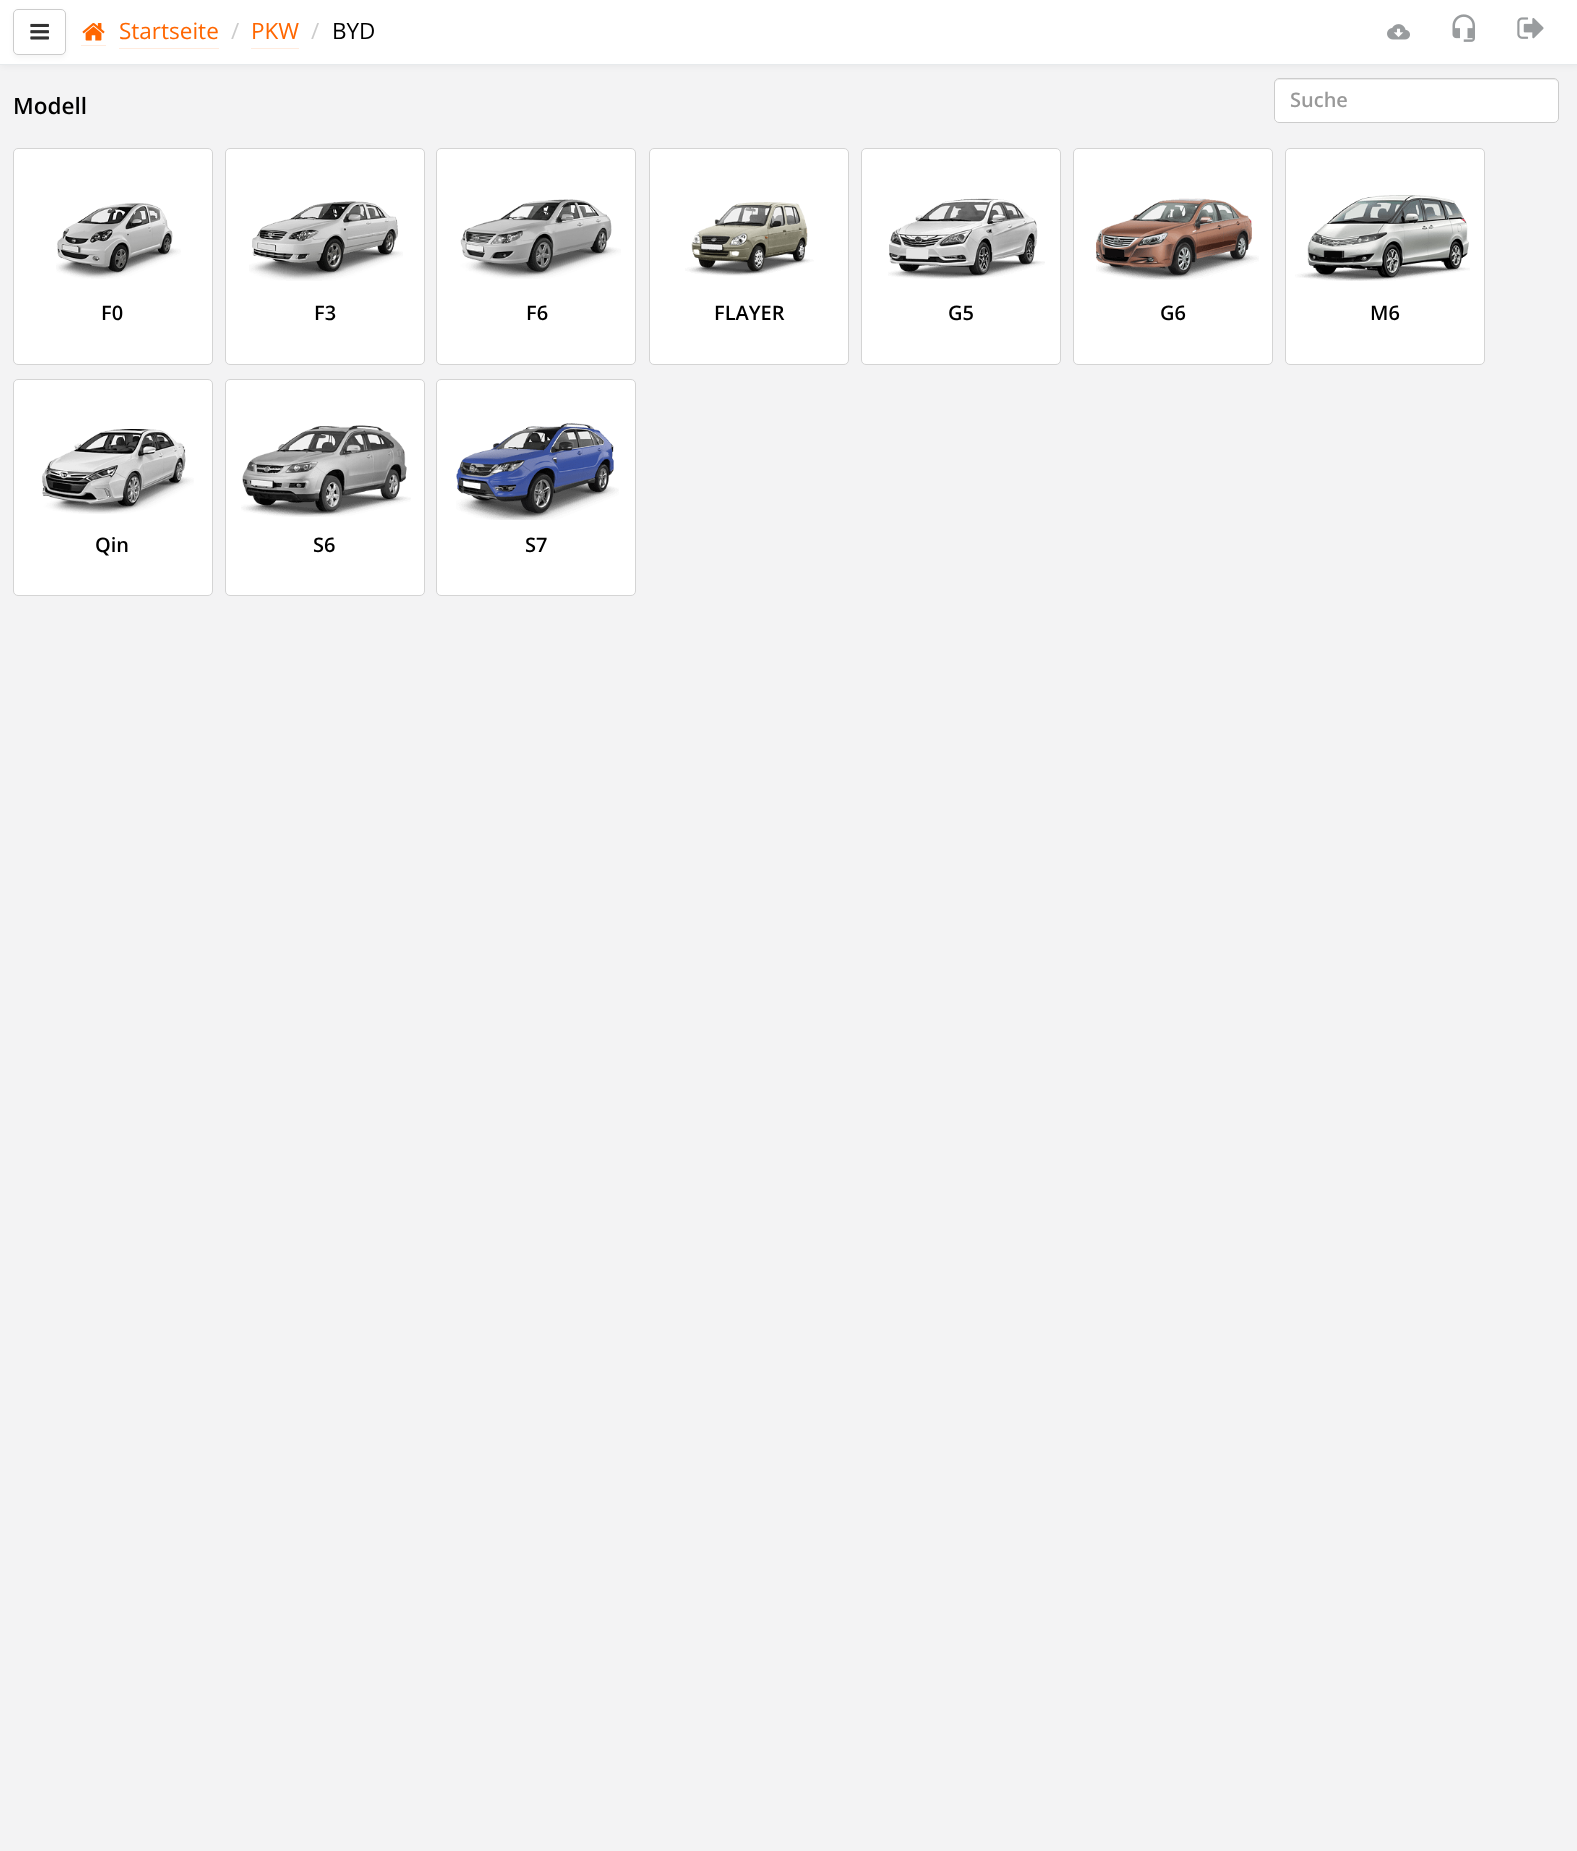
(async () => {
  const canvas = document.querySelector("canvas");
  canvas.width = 1577;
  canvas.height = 1851;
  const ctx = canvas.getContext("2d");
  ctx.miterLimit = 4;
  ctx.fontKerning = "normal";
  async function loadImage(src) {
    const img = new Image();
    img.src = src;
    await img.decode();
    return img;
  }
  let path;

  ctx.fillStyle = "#f3f3f4";
  ctx.fillRect(0, 0, 1577, 1851);
  ctx.fillStyle = "rgba(0, 0, 0, 0.05)";
  ctx.filter = "blur(3px)";
  ctx.beginPath();
  ctx.rect(1, 1, 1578, 65);
  ctx.fill();
  ctx.filter = "none";
  ctx.fillStyle = "#ffffff";
  ctx.fillRect(0, 0, 1577, 64);
  ctx.fillStyle = "#e7eaec";
  ctx.fillRect(0, 64, 1577, 1);
  ctx.fillStyle = "rgba(0, 0, 0, 0.04)";
  ctx.filter = "blur(2.5px)";
  ctx.beginPath();
  ctx.roundRect(13, 11, 53, 47, 5);
  ctx.fill();
  ctx.filter = "none";
  ctx.fillStyle = "#ffffff";
  ctx.beginPath();
  ctx.roundRect(13.5, 9.5, 52, 45, 4.5);
  ctx.fill();
  ctx.strokeStyle = "#cccccc";
  ctx.stroke();
  ctx.drawImage(await loadImage("img/1.png"), 30, 23, 19, 17);
  ctx.fillStyle = "#ffebde";
  ctx.fillRect(81, 45, 25, 1);
  ctx.fillRect(119, 48, 100, 1);
  ctx.drawImage(await loadImage("img/2.png"), 82, 23, 23, 18);
  ctx.fillRect(251, 48, 48, 1);
  ctx.drawImage(await loadImage("img/3.png"), 1387, 24, 23, 16);
  ctx.drawImage(await loadImage("img/4.png"), 1452, 14, 23, 28);
  ctx.drawImage(await loadImage("img/5.png"), 1517, 17, 27, 22);
  ctx.fillStyle = "#ffffff";
  ctx.beginPath();
  ctx.roundRect(1274, 78, 285, 45, 5);
  ctx.fill();
  ctx.fillStyle = "#ececec";
  path = new Path2D("M1279 80H1554C1556 80 1558 82 1558 84C1558 81 1557 79 1554 79H1279C1276 79 1275 81 1275 84C1275 82 1277 80 1279 80Z");
  ctx.fill(path);
  ctx.beginPath();
  ctx.roundRect(1274.5, 78.5, 284, 44, 4.5);
  ctx.stroke();
  ctx.fillStyle = "#ffffff";
  ctx.beginPath();
  ctx.roundRect(13.5, 148.5, 199, 216, 4.5);
  ctx.fill();
  ctx.strokeStyle = "#d4d4d4";
  ctx.stroke();
  ctx.drawImage(await loadImage("img/6.png"), 56, 203, 125, 76);
  ctx.beginPath();
  ctx.roundRect(225.5, 148.5, 199, 216, 4.5);
  ctx.fill();
  ctx.stroke();
  ctx.drawImage(await loadImage("img/7.png"), 249, 201, 154, 80);
  ctx.beginPath();
  ctx.roundRect(436.5, 148.5, 199, 216, 4.5);
  ctx.fill();
  ctx.stroke();
  ctx.drawImage(await loadImage("img/8.png"), 460, 199, 161, 80);
  ctx.beginPath();
  ctx.roundRect(649.5, 148.5, 199, 216, 4.5);
  ctx.fill();
  ctx.stroke();
  ctx.drawImage(await loadImage("img/9.png"), 685, 202, 129, 74);
  ctx.beginPath();
  ctx.roundRect(861.5, 148.5, 199, 216, 4.5);
  ctx.fill();
  ctx.stroke();
  ctx.drawImage(await loadImage("img/10.png"), 888, 198, 157, 81);
  ctx.beginPath();
  ctx.roundRect(1073.5, 148.5, 199, 216, 4.5);
  ctx.fill();
  ctx.stroke();
  ctx.drawImage(await loadImage("img/11.png"), 1096, 198, 163, 82);
  ctx.beginPath();
  ctx.roundRect(1285.5, 148.5, 199, 216, 4.5);
  ctx.fill();
  ctx.stroke();
  ctx.drawImage(await loadImage("img/12.png"), 1295, 195, 175, 86);
  ctx.beginPath();
  ctx.roundRect(13.5, 379.5, 199, 216, 4.5);
  ctx.fill();
  ctx.stroke();
  ctx.drawImage(await loadImage("img/13.png"), 42, 429, 152, 85);
  ctx.beginPath();
  ctx.roundRect(225.5, 379.5, 199, 216, 4.5);
  ctx.fill();
  ctx.stroke();
  ctx.drawImage(await loadImage("img/14.png"), 241, 425, 170, 92);
  ctx.beginPath();
  ctx.roundRect(436.5, 379.5, 199, 216, 4.5);
  ctx.fill();
  ctx.stroke();
  ctx.drawImage(await loadImage("img/15.png"), 456, 423, 163, 97);
  ctx.font = "22.5px Open Sans";
  ctx.fillStyle = "#ff6600";
  ctx.fillText("Startseite", 119, 39);
  ctx.fillStyle = "#cccccc";
  ctx.fillText("/", 231, 39);
  ctx.fillStyle = "#ff6600";
  ctx.fillText("PKW", 251, 39);
  ctx.fillStyle = "#cccccc";
  ctx.fillText("/", 311, 39);
  ctx.fillStyle = "#000000";
  ctx.fillText("BYD", 332, 39);
  ctx.font = "600 20px Open Sans";
  ctx.fillStyle = "#999999";
  ctx.fillText("Suche", 1290, 107);
  ctx.font = "600 22.5px Open Sans";
  ctx.fillStyle = "#000000";
  ctx.fillText("Modell", 13, 114);
  ctx.font = "600 20px Open Sans";
  for (const [text, x, y] of [
    ["F0", 101, 320],
    ["F3", 314, 320],
    ["F6", 526, 320],
    ["FLAYER", 714, 320],
    ["G5", 948, 320],
    ["G6", 1160, 320],
    ["M6", 1370, 320],
    ["Qin", 95, 552],
    ["S6", 313, 552],
    ["S7", 525, 552],
  ]) {
    ctx.fillText(text, x, y);
  }
})();
